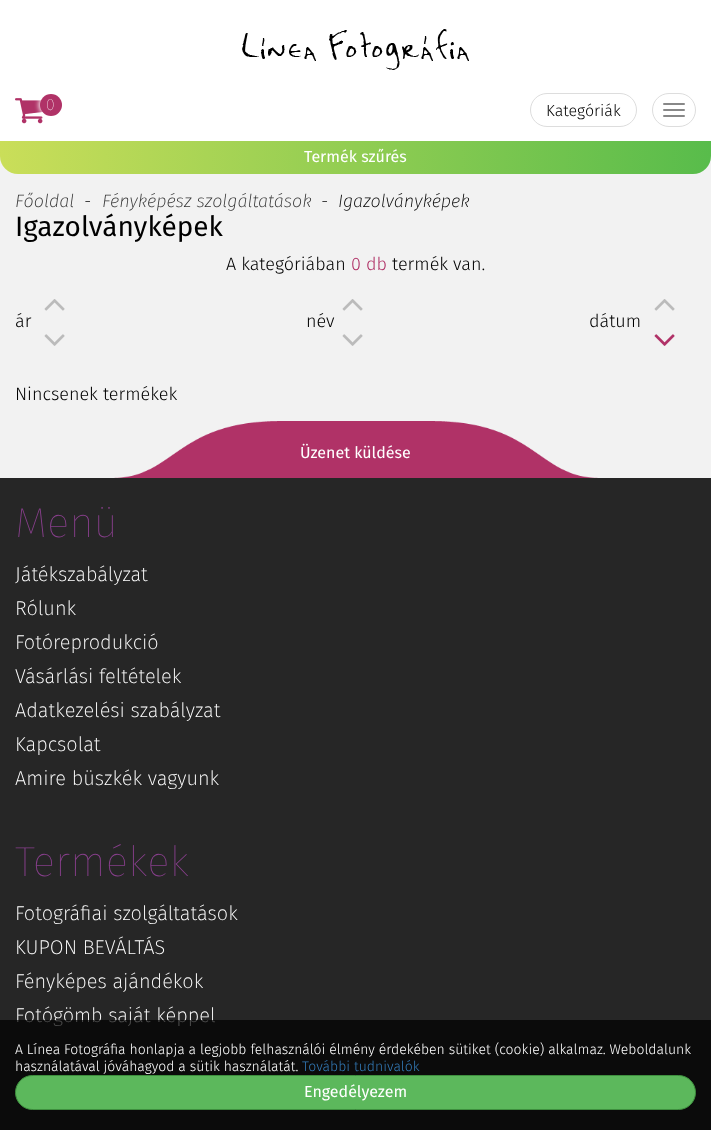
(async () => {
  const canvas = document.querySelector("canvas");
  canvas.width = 711;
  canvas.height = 1130;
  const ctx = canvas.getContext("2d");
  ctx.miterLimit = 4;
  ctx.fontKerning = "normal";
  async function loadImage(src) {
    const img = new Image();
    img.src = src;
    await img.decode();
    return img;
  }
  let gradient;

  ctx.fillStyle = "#ffffff";
  ctx.fillRect(0, 0, 711, 1130);
  ctx.drawImage(await loadImage("img/1.png"), 242, 29, 227, 41);
  ctx.drawImage(await loadImage("img/2.png"), 15, 98, 28, 26);
  ctx.filter = "blur(2.5px)";
  ctx.beginPath();
  ctx.roundRect(39, 94, 22, 22, 11);
  ctx.fill();
  ctx.filter = "none";
  ctx.fillStyle = "#b03267";
  ctx.beginPath();
  ctx.arc(51, 105, 11, 0, Math.PI * 2);
  ctx.fill();
  ctx.beginPath();
  ctx.roundRect(530.5, 93.5, 106, 33, 16.5);
  ctx.strokeStyle = "#dddddd";
  ctx.stroke();
  ctx.beginPath();
  ctx.roundRect(652.5, 93.5, 43, 33, 16.5);
  ctx.stroke();
  ctx.fillStyle = "#888888";
  ctx.beginPath();
  ctx.roundRect(663, 103, 22, 2, 1);
  ctx.fill();
  ctx.beginPath();
  ctx.roundRect(663, 109, 22, 2, 1);
  ctx.fill();
  ctx.beginPath();
  ctx.roundRect(663, 115, 22, 2, 1);
  ctx.fill();
  ctx.fillStyle = "#f2f2f2";
  ctx.fillRect(0, 156, 711, 322);
  gradient = ctx.createLinearGradient(0, 158, 711, 157);
  gradient.addColorStop(0, "#cade59");
  gradient.addColorStop(1, "#58bc4b");
  ctx.fillStyle = gradient;
  ctx.beginPath();
  ctx.roundRect(0, 141, 711, 33, [0, 0, 18, 18]);
  ctx.fill();
  ctx.drawImage(await loadImage("img/3.png"), 44, 299, 21, 12);
  ctx.drawImage(await loadImage("img/4.png"), 44, 334, 21, 12);
  ctx.drawImage(await loadImage("img/3.png"), 342, 299, 21, 12);
  ctx.drawImage(await loadImage("img/4.png"), 342, 334, 21, 12);
  ctx.drawImage(await loadImage("img/3.png"), 654, 299, 21, 12);
  ctx.drawImage(await loadImage("img/5.png"), 654, 334, 21, 12);
  ctx.drawImage(await loadImage("img/6.png"), 114, 421, 484, 57);
  ctx.fillStyle = "#262626";
  ctx.fillRect(0, 478, 711, 652);
  ctx.font = "100 16px Fira Sans";
  ctx.fillStyle = "#ffffff";
  ctx.fillText("0", 46, 110);
  ctx.font = "300 16px Fira Sans";
  ctx.fillStyle = "#000000";
  ctx.fillText("Kategóriák", 546, 116);
  ctx.font = "16px Fira Sans";
  ctx.fillStyle = "#ffffff";
  ctx.fillText("Termék szűrés", 304, 162);
  ctx.font = "italic 200 18px Fira Sans";
  ctx.fillStyle = "#343434";
  ctx.fillText("Főoldal", 15, 207);
  ctx.fillStyle = "#000000";
  ctx.fillText("-", 84, 207);
  ctx.fillStyle = "#343434";
  ctx.fillText("Fényképész szolgáltatások", 102, 207);
  ctx.fillStyle = "#000000";
  ctx.fillText("-", 321, 207);
  ctx.fillText("Igazolványképek", 338, 207);
  ctx.font = "28px Fira Sans";
  ctx.fillText("Igazolványképek", 15, 236);
  ctx.font = "300 18px Fira Sans";
  ctx.fillText("A kategóriában", 226, 270);
  ctx.fillStyle = "#b03267";
  ctx.fillText("0 db", 351, 270);
  ctx.fillStyle = "#000000";
  for (const [text, x, y] of [
    ["termék van.", 392, 270],
    ["ár", 15, 327],
    ["név", 306, 327],
    ["dátum", 589, 327],
    ["Nincsenek termékek", 15, 400],
  ]) {
    ctx.fillText(text, x, y);
  }
  ctx.font = "16px Fira Sans";
  ctx.fillStyle = "#ffffff";
  ctx.fillText("Üzenet küldése", 300, 458);
  ctx.font = "100 42px Fira Sans";
  ctx.fillStyle = "#873f8b";
  ctx.fillText("Menü", 15, 537);
  ctx.font = "200 20px Fira Sans";
  ctx.fillStyle = "#ffffff";
  for (const [text, x, y] of [
    ["Játékszabályzat", 15, 581],
    ["Rólunk", 15, 615],
    ["Fotóreprodukció", 15, 649],
    ["Vásárlási feltételek", 15, 683],
    ["Adatkezelési szabályzat", 15, 717],
    ["Kapcsolat", 15, 751],
    ["Amire büszkék vagyunk", 15, 785],
  ]) {
    ctx.fillText(text, x, y);
  }
  ctx.font = "100 42px Fira Sans";
  ctx.fillStyle = "#873f8b";
  ctx.fillText("Termékek", 15, 876);
  ctx.font = "200 20px Fira Sans";
  ctx.fillStyle = "#ffffff";
  for (const [text, x, y] of [
    ["Fotográfiai szolgáltatások", 15, 920],
    ["KUPON BEVÁLTÁS", 15, 954],
    ["Fényképes ajándékok", 15, 988],
    ["Fotógömb saját képpel", 15, 1022],
  ]) {
    ctx.fillText(text, x, y);
  }
  ctx.fillStyle = "rgba(0, 0, 0, 0.7)";
  ctx.fillRect(0, 1020, 711, 110);
  ctx.font = "300 14px Fira Sans";
  ctx.fillStyle = "#ffffff";
  ctx.fillText("A Línea Fotográfia honlapja a legjobb felhasználói élmény érdekében sütiket (cookie) alkalmaz. Weboldalunk", 15, 1054);
  ctx.fillText("használatával jóváhagyod a sütik használatát.", 15, 1071);
  ctx.fillStyle = "#337ab7";
  ctx.fillText("További tudnivalók", 302, 1071);
  ctx.fillStyle = "#5cb85c";
  ctx.beginPath();
  ctx.roundRect(15.5, 1075.5, 680, 34, 17);
  ctx.fill();
  ctx.strokeStyle = "#3e8f3e";
  ctx.stroke();
  ctx.font = "16px Fira Sans";
  ctx.fillStyle = "#ffffff";
  ctx.fillText("Engedélyezem", 304, 1097);
})();
